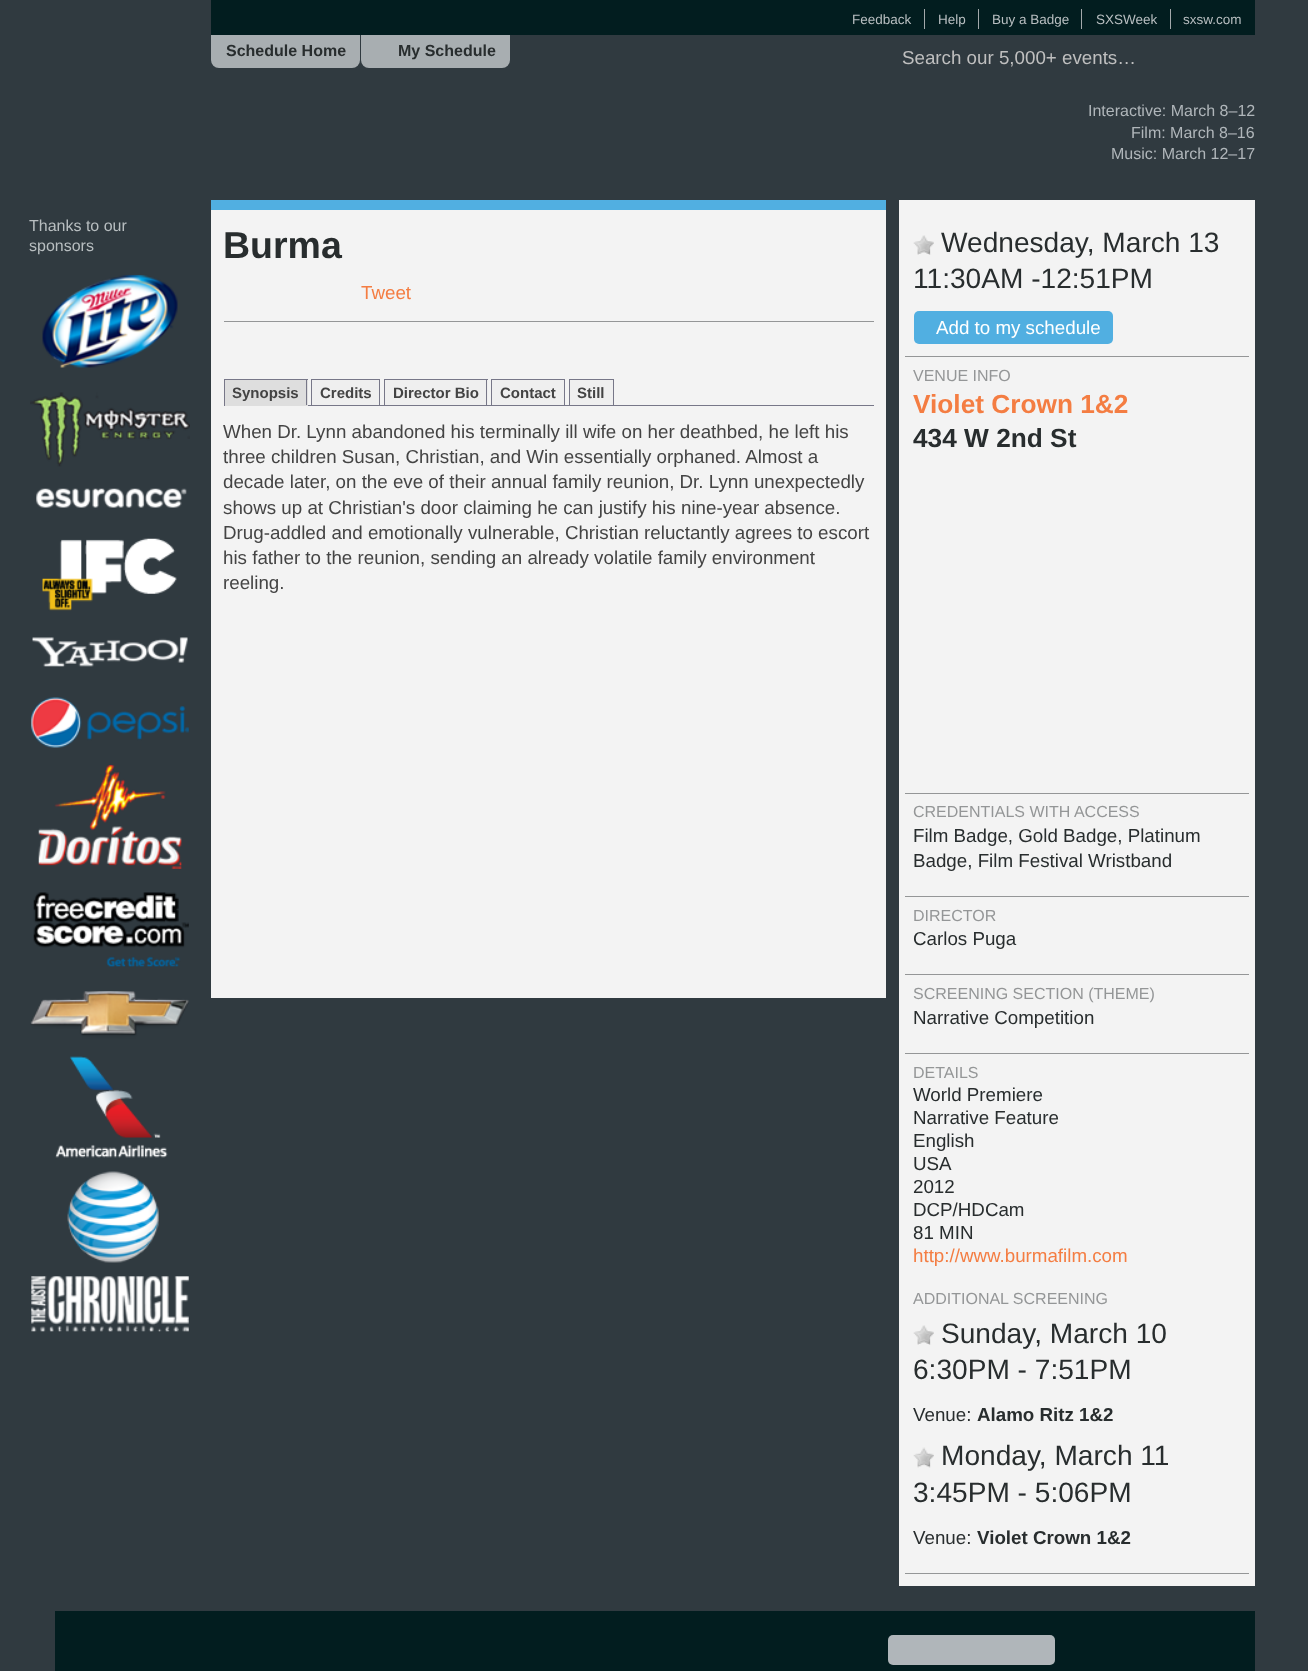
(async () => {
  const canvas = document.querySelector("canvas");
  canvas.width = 1308;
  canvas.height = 1671;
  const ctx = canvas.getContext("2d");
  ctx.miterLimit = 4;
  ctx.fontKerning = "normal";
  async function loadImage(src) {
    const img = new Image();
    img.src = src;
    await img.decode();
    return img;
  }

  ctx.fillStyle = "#303a40";
  ctx.fillRect(0, 0, 1308, 1671);
  for (const [x, y, w, h, color] of [
    [211, 0, 1044, 35, "#021d1f"],
    [924, 9, 1, 20, "#a3a9ab"],
    [978, 9, 1, 20, "#a3a9ab"],
    [1081, 9, 1, 20, "#a3a9ab"],
    [1170, 9, 1, 20, "#a3a9ab"],
  ]) {
    ctx.fillStyle = color;
    ctx.fillRect(x, y, w, h);
  }
  ctx.fillStyle = "#a8aeb1";
  ctx.beginPath();
  ctx.roundRect(211, 35, 149, 33, [0, 0, 8, 8]);
  ctx.fill();
  ctx.beginPath();
  ctx.roundRect(361, 35, 149, 33, [0, 0, 8, 8]);
  ctx.fill();
  ctx.drawImage(await loadImage("img/1.png"), 30, 274, 160, 1058);
  for (const [x, y, w, h, color] of [
    [211, 210, 675, 788, "#f3f3f3"],
    [211, 200, 675, 10, "#51afe1"],
    [224, 321, 650, 1, "#949697"],
    [308, 405, 566, 1, "#777788"],
    [225, 380, 83, 25, "#dedede"],
    [224, 379, 84, 1, "#777788"],
    [306, 379, 1, 27, "#777788"],
    [224, 405, 84, 1, "#dedede"],
    [224, 379, 1, 27, "#777788"],
    [312, 380, 67, 25, "#efefef"],
    [311, 379, 69, 1, "#777788"],
    [379, 379, 1, 26, "#777788"],
    [311, 379, 1, 26, "#777788"],
    [385, 380, 103, 25, "#efefef"],
    [384, 379, 104, 1, "#777788"],
    [486, 379, 1, 26, "#777788"],
    [384, 379, 1, 26, "#777788"],
    [492, 380, 72, 25, "#efefef"],
    [491, 379, 74, 1, "#777788"],
    [564, 379, 1, 26, "#777788"],
    [491, 379, 1, 26, "#777788"],
    [570, 380, 43, 25, "#efefef"],
    [569, 379, 45, 1, "#777788"],
    [613, 379, 1, 26, "#777788"],
    [569, 379, 1, 26, "#777788"],
    [899, 200, 356, 1386, "#f3f3f3"],
    [905, 356, 344, 1, "#949697"],
  ]) {
    ctx.fillStyle = color;
    ctx.fillRect(x, y, w, h);
  }
  ctx.drawImage(await loadImage("img/2.png"), 913, 235, 21, 20);
  ctx.fillStyle = "#51afe1";
  ctx.beginPath();
  ctx.roundRect(914, 311, 199, 33, 5);
  ctx.fill();
  for (const [x, y, w, h, color] of [
    [905, 793, 344, 1, "#949697"],
    [905, 896, 344, 1, "#949697"],
    [905, 974, 344, 1, "#949697"],
    [905, 1053, 344, 1, "#949697"],
    [905, 1573, 344, 1, "#949697"],
  ]) {
    ctx.fillStyle = color;
    ctx.fillRect(x, y, w, h);
  }
  ctx.drawImage(await loadImage("img/2.png"), 913, 1325, 21, 20);
  ctx.drawImage(await loadImage("img/3.png"), 913, 1447, 21, 21);
  ctx.fillStyle = "#021d1f";
  ctx.fillRect(55, 1611, 1200, 60);
  ctx.fillStyle = "#b0b6ba";
  ctx.beginPath();
  ctx.roundRect(888, 1635, 167, 30, 5);
  ctx.fill();
  ctx.font = "13.5px Liberation Sans";
  ctx.fillStyle = "#b8bec0";
  for (const [text, x, y] of [
    ["Feedback", 852, 24],
    ["Help", 938, 24],
    ["Buy a Badge", 992, 24],
    ["SXSWeek", 1096, 24],
    ["sxsw.com", 1183, 24],
  ]) {
    ctx.fillText(text, x, y);
  }
  ctx.font = "bold 16px Liberation Sans";
  ctx.fillStyle = "#282d2e";
  ctx.fillText("Schedule Home", 226, 56);
  ctx.fillText("My Schedule", 398, 56);
  ctx.font = "18.75px Liberation Sans";
  ctx.fillStyle = "#bfbfbf";
  ctx.fillText("Search our 5,000+ events…", 902, 64);
  ctx.font = "16px Liberation Sans";
  ctx.fillStyle = "#b0b6ba";
  for (const [text, x, y] of [
    ["Interactive: March 8–12", 1088, 116],
    ["Film: March 8–16", 1131, 138],
    ["Music: March 12–17", 1111, 159],
  ]) {
    ctx.fillText(text, x, y);
  }
  ctx.fillStyle = "#b8bec0";
  ctx.fillText("Thanks to our", 29, 231);
  ctx.fillText("sponsors", 29, 251);
  ctx.font = "bold 37.5px Liberation Sans";
  ctx.fillStyle = "#282d2e";
  ctx.fillText("Burma", 223, 258);
  ctx.font = "18.75px Liberation Sans";
  ctx.fillStyle = "#f47d42";
  ctx.fillText("Tweet", 361, 299);
  ctx.font = "bold 15px Liberation Sans";
  ctx.fillStyle = "#444444";
  for (const [text, x, y] of [
    ["Synopsis", 232, 398],
    ["Credits", 320, 398],
    ["Director Bio", 393, 398],
    ["Contact", 500, 398],
    ["Still", 577, 398],
  ]) {
    ctx.fillText(text, x, y);
  }
  ctx.font = "18.75px Liberation Sans";
  for (const [text, x, y] of [
    ["When Dr. Lynn abandoned his terminally ill wife on her deathbed, he left his", 223, 438],
    ["three children Susan, Christian, and Win essentially orphaned. Almost a", 223, 463],
    ["decade later, on the eve of their annual family reunion, Dr. Lynn unexpectedly", 223, 488],
    ["shows up at Christian's door claiming he can justify his nine-year absence.", 223, 514],
    ["Drug-addled and emotionally vulnerable, Christian reluctantly agrees to escort", 223, 539],
    ["his father to the reunion, sending an already volatile family environment", 223, 564],
    ["reeling.", 223, 589],
  ]) {
    ctx.fillText(text, x, y);
  }
  ctx.font = "28.1px Liberation Sans";
  ctx.fillStyle = "#282d2e";
  ctx.fillText("Wednesday, March 13", 941, 252);
  ctx.fillText("11:30AM -12:51PM", 913, 288);
  ctx.font = "18.75px Liberation Sans";
  ctx.fillStyle = "#ffffff";
  ctx.fillText("Add to my schedule", 936, 334);
  ctx.font = "16px Liberation Sans";
  ctx.fillStyle = "#949697";
  ctx.fillText("VENUE INFO", 913, 381);
  ctx.font = "bold 26.25px Liberation Sans";
  ctx.fillStyle = "#f47d42";
  ctx.fillText("Violet Crown 1&2", 913, 413);
  ctx.fillStyle = "#282d2e";
  ctx.fillText("434 W 2nd St", 913, 447);
  ctx.font = "16px Liberation Sans";
  ctx.fillStyle = "#949697";
  ctx.fillText("CREDENTIALS WITH ACCESS", 913, 817);
  ctx.font = "18.75px Liberation Sans";
  ctx.fillStyle = "#282d2e";
  ctx.fillText("Film Badge, Gold Badge, Platinum", 913, 842);
  ctx.fillText("Badge, Film Festival Wristband", 913, 867);
  ctx.font = "16px Liberation Sans";
  ctx.fillStyle = "#949697";
  ctx.fillText("DIRECTOR", 913, 921);
  ctx.font = "18.75px Liberation Sans";
  ctx.fillStyle = "#282d2e";
  ctx.fillText("Carlos Puga", 913, 945);
  ctx.font = "16px Liberation Sans";
  ctx.fillStyle = "#949697";
  ctx.fillText("SCREENING SECTION (THEME)", 913, 999);
  ctx.font = "18.75px Liberation Sans";
  ctx.fillStyle = "#282d2e";
  ctx.fillText("Narrative Competition", 913, 1024);
  ctx.font = "16px Liberation Sans";
  ctx.fillStyle = "#949697";
  ctx.fillText("DETAILS", 913, 1078);
  ctx.font = "18.75px Liberation Sans";
  ctx.fillStyle = "#282d2e";
  for (const [text, x, y] of [
    ["World Premiere", 913, 1101],
    ["Narrative Feature", 913, 1124],
    ["English", 913, 1147],
    ["USA", 913, 1170],
    ["2012", 913, 1193],
    ["DCP/HDCam", 913, 1216],
    ["81 MIN", 913, 1239],
  ]) {
    ctx.fillText(text, x, y);
  }
  ctx.fillStyle = "#f47d42";
  ctx.fillText("http://www.burmafilm.com", 913, 1262);
  ctx.font = "16px Liberation Sans";
  ctx.fillStyle = "#949697";
  ctx.fillText("ADDITIONAL SCREENING", 913, 1304);
  ctx.font = "28.1px Liberation Sans";
  ctx.fillStyle = "#282d2e";
  ctx.fillText("Sunday, March 10", 941, 1343);
  ctx.fillText("6:30PM - 7:51PM", 913, 1379);
  ctx.font = "18.75px Liberation Sans";
  ctx.fillText("Venue:", 913, 1421);
  ctx.font = "bold 18.75px Liberation Sans";
  ctx.fillText("Alamo Ritz 1&2", 977, 1421);
  ctx.font = "28.1px Liberation Sans";
  ctx.fillText("Monday, March 11", 941, 1465);
  ctx.fillText("3:45PM - 5:06PM", 913, 1502);
  ctx.font = "18.75px Liberation Sans";
  ctx.fillText("Venue:", 913, 1544);
  ctx.font = "bold 18.75px Liberation Sans";
  ctx.fillText("Violet Crown 1&2", 977, 1544);
})();
